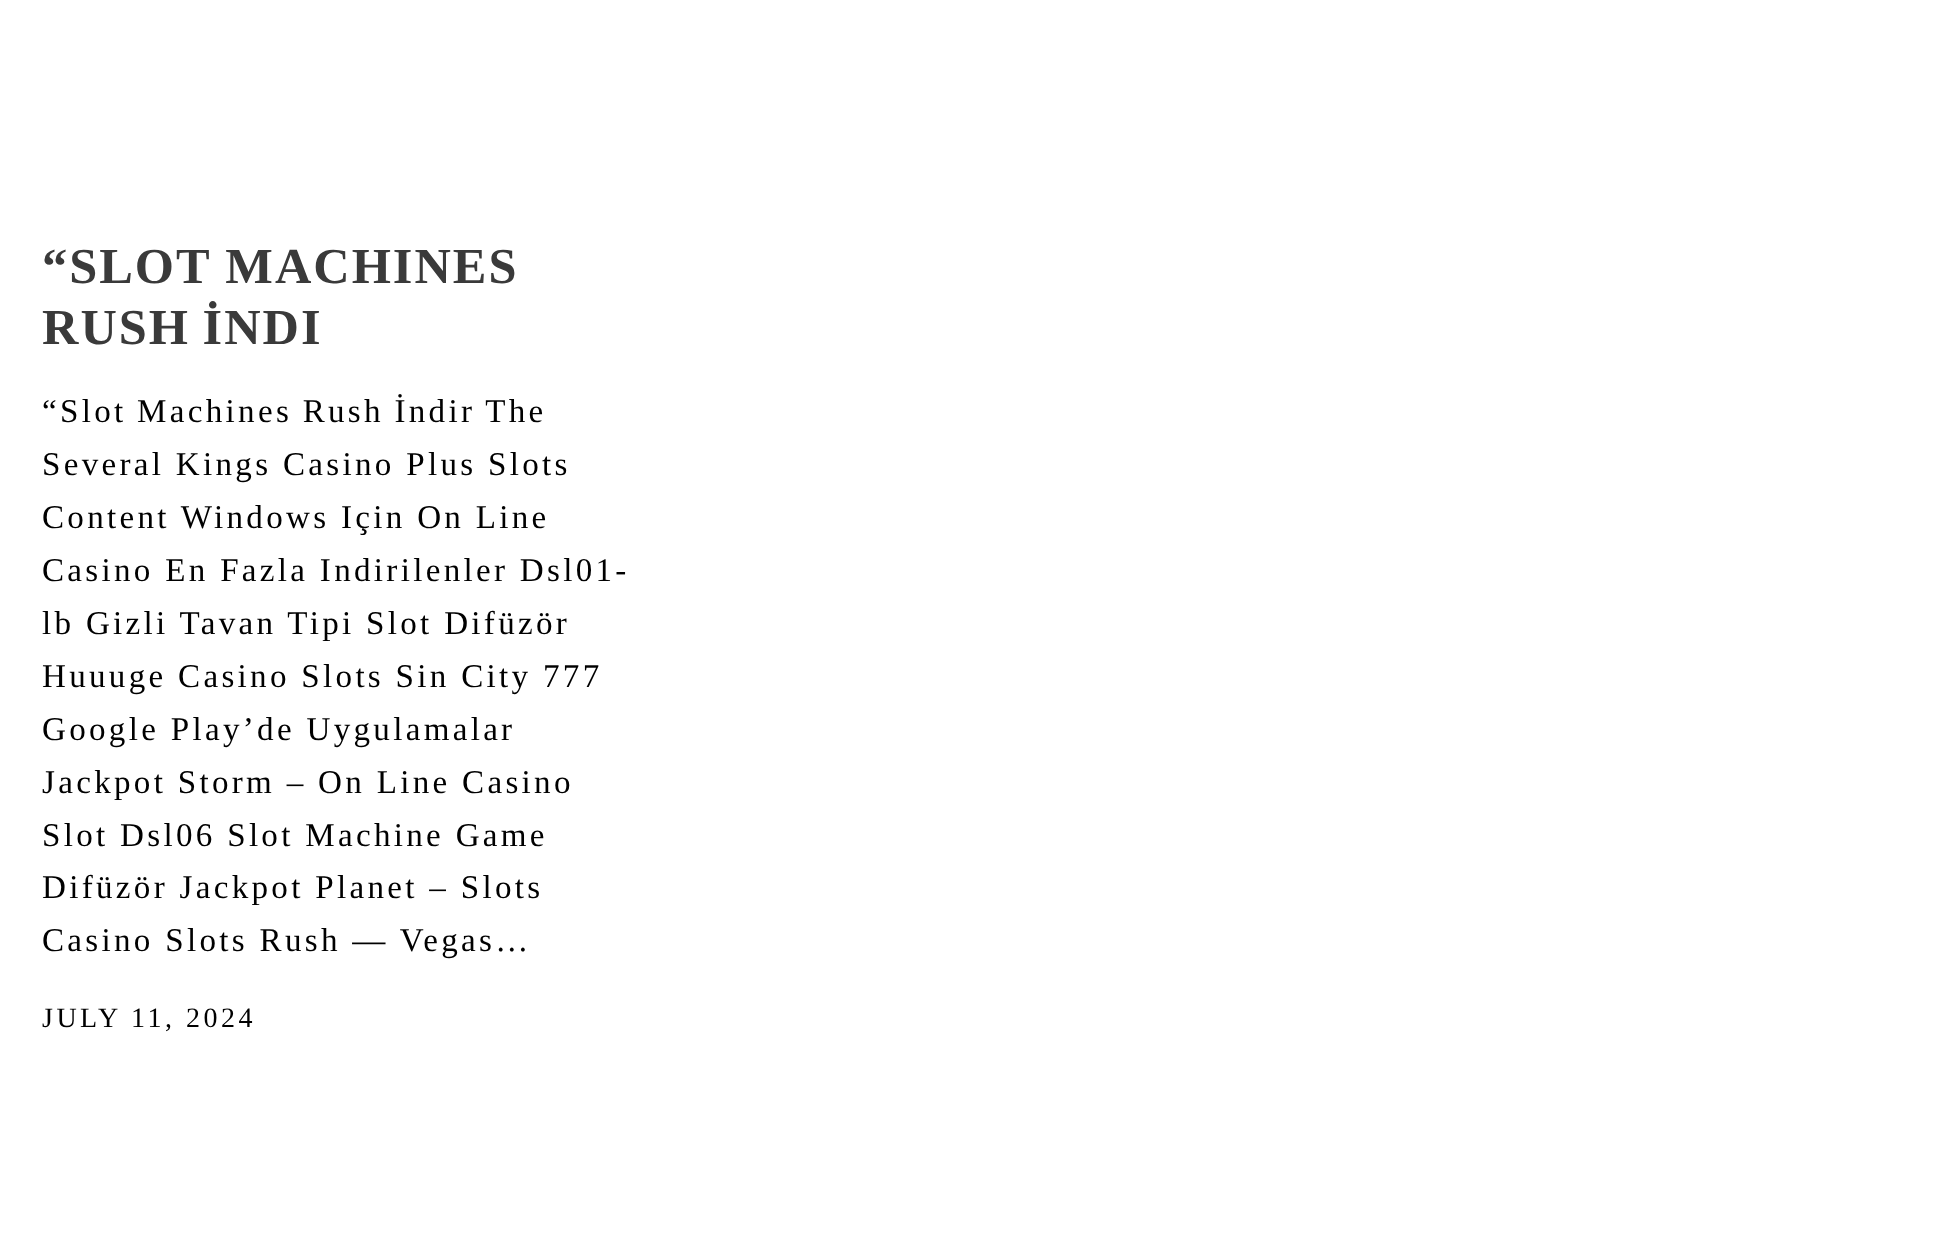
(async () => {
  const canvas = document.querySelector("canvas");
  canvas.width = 1944;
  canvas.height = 1259;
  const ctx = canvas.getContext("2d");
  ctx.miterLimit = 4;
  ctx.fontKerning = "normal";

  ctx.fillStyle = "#ffffff";
  ctx.fillRect(0, 0, 1944, 1259);
  ctx.letterSpacing = "2px";
  ctx.font = "bold 50.4px Liberation Serif";
  ctx.fillStyle = "#3a3a3a";
  ctx.fillText("“SLOT MACHINES", 42, 283);
  ctx.wordSpacing = "-2px";
  ctx.fillText("RUSH İNDI", 42, 344);
  ctx.letterSpacing = "3.3px";
  ctx.wordSpacing = "-1px";
  ctx.font = "33.1px Liberation Serif";
  ctx.fillStyle = "#000000";
  ctx.fillText("“Slot Machines Rush İndir The", 42, 422);
  ctx.wordSpacing = "0px";
  for (const [text, x, y] of [
    ["Several Kings Casino Plus Slots", 42, 475],
    ["Content Windows Için On Line", 42, 528],
    ["Casino En Fazla Indirilenler Dsl01-", 42, 581],
    ["lb Gizli Tavan Tipi Slot Difüzör", 42, 634],
    ["Huuuge Casino Slots Sin City 777", 42, 687],
    ["Google Play’de Uygulamalar", 42, 740],
    ["Jackpot Storm – On Line Casino", 42, 793],
    ["Slot Dsl06 Slot Machine Game", 42, 846],
    ["Difüzör Jackpot Planet – Slots", 42, 898],
    ["Casino Slots Rush — Vegas…", 42, 951],
  ]) {
    ctx.fillText(text, x, y);
  }
  ctx.letterSpacing = "3.5px";
  ctx.font = "28px Liberation Serif";
  ctx.fillText("JULY 11, 2024", 42, 1027);
})();
